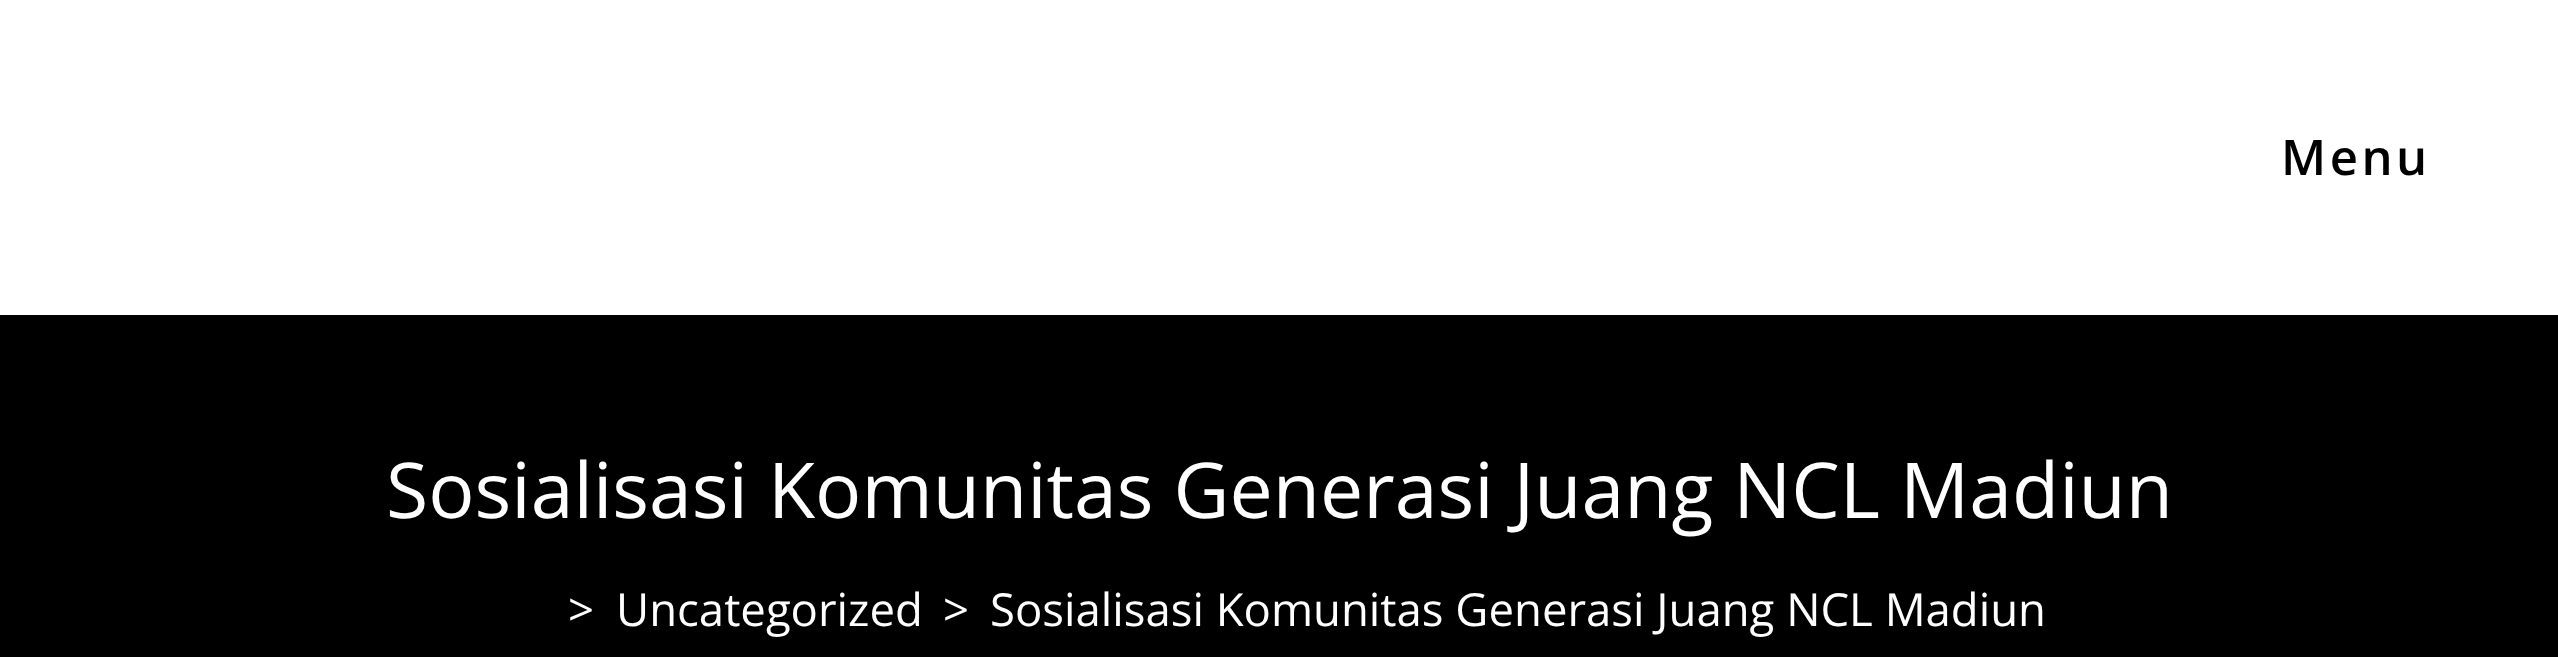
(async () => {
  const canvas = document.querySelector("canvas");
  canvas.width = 2558;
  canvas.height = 657;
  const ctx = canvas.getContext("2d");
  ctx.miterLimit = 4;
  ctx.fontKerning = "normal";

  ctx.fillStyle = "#ffffff";
  ctx.fillRect(0, 0, 2558, 657);
  ctx.fillStyle = "#000000";
  ctx.fillRect(0, 315, 2558, 342);
  ctx.letterSpacing = "3.5px";
  ctx.font = "600 49px Open Sans";
  ctx.fillText("Menu", 2281, 175);
  ctx.letterSpacing = "0px";
  ctx.font = "77px Open Sans";
  ctx.fillStyle = "#ffffff";
  ctx.fillText("Sosialisasi Komunitas Generasi Juang NCL Madiun", 386, 518);
  ctx.font = "45.5px Open Sans";
  for (const [text, x, y] of [
    [">", 568, 626],
    ["Uncategorized", 616, 626],
    [">", 943, 626],
    ["Sosialisasi Komunitas Generasi Juang NCL Madiun", 990, 626],
  ]) {
    ctx.fillText(text, x, y);
  }
})();
